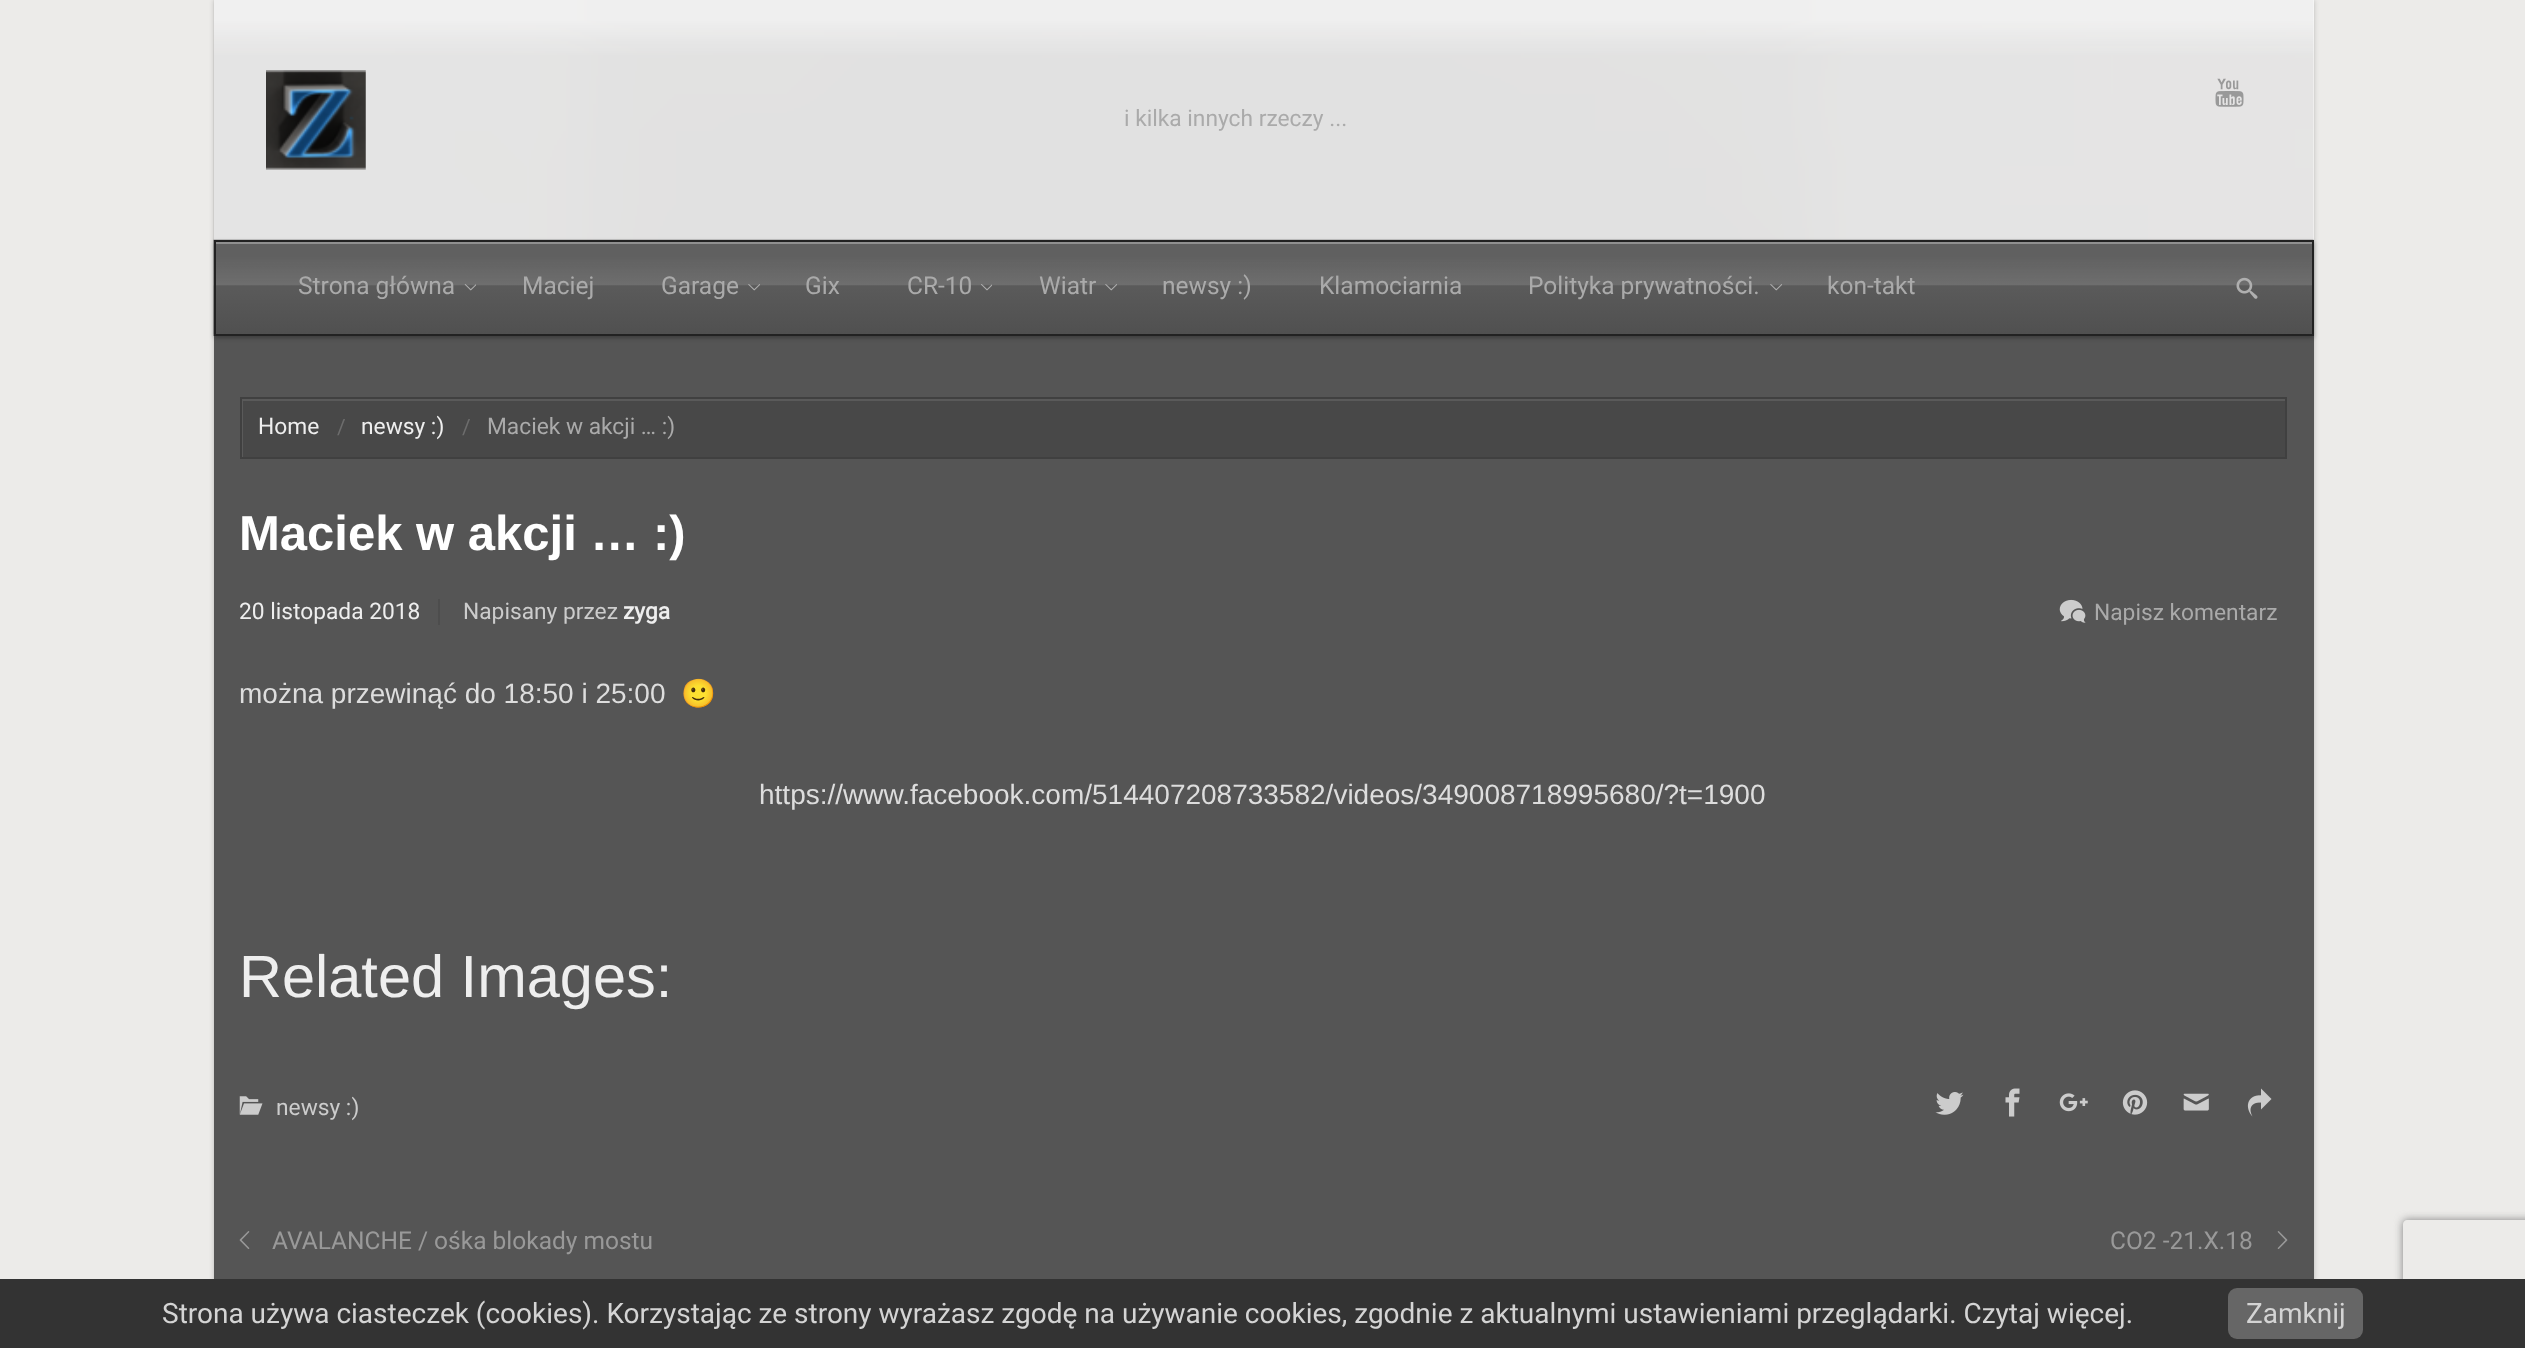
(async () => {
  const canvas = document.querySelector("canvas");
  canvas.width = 2525;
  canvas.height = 1348;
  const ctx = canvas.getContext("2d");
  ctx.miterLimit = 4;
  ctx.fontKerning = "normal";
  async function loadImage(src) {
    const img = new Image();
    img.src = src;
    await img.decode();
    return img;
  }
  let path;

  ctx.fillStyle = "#ecebe9";
  ctx.fillRect(0, 0, 2525, 1348);
  ctx.fillStyle = "rgba(0, 0, 0, 0.2)";
  ctx.filter = "blur(2.5px)";
  ctx.beginPath();
  ctx.rect(214, 0, 2100, 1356);
  ctx.fill();
  ctx.filter = "none";
  ctx.fillStyle = "#f9f9f9";
  ctx.fillRect(214, 0, 2100, 240);
  ctx.fillStyle = "#555555";
  ctx.fillRect(214, 336, 2100, 943);
  ctx.fillStyle = "rgba(0, 0, 0, 0.29)";
  ctx.filter = "blur(2px)";
  ctx.beginPath();
  ctx.rect(214, 242, 2100, 96);
  ctx.fill();
  ctx.filter = "none";
  ctx.drawImage(await loadImage("img/4.png"), 213, 239, 2101, 97);
  ctx.drawImage(await loadImage("img/1.png"), 213, 0, 2101, 240);
  ctx.drawImage(await loadImage("img/2.png"), 2215, 78, 29, 29);
  ctx.drawImage(await loadImage("img/3.png"), 266, 70, 100, 100);
  ctx.fillStyle = "#909090";
  ctx.fillRect(215, 242, 2097, 2);
  ctx.strokeStyle = "#222222";
  ctx.lineWidth = 2;
  ctx.strokeRect(215, 241, 2098, 94);
  ctx.drawImage(await loadImage("img/5.png"), 464, 284, 12, 7);
  ctx.drawImage(await loadImage("img/6.png"), 748, 284, 12, 7);
  ctx.drawImage(await loadImage("img/7.png"), 981, 284, 11, 7);
  ctx.drawImage(await loadImage("img/8.png"), 1105, 284, 12, 7);
  ctx.drawImage(await loadImage("img/9.png"), 1770, 284, 12, 7);
  ctx.drawImage(await loadImage("img/10.png"), 2236, 277, 22, 22);
  ctx.fillStyle = "#484848";
  ctx.fillRect(243, 401, 2042, 56);
  ctx.save();
  ctx.beginPath();
  ctx.rect(242, 399, 2044, 58);
  ctx.clip();
  ctx.fillStyle = "#5a5a5a";
  path = new Path2D("M68 226H2459V630H68ZM243 401H2287V458H243Z");
  ctx.fill(path, "evenodd");
  ctx.restore();
  ctx.strokeStyle = "#404040";
  ctx.strokeRect(241, 398, 2045, 60);
  ctx.fillStyle = "#4d4d4d";
  ctx.fillRect(438, 599, 2, 26);
  ctx.drawImage(await loadImage("img/11.png"), 2059, 599, 27, 24);
  ctx.drawImage(await loadImage("img/12.png"), 239, 1096, 24, 19);
  ctx.drawImage(await loadImage("img/13.png"), 1935, 1092, 29, 23);
  ctx.drawImage(await loadImage("img/14.png"), 2005, 1088, 15, 29);
  ctx.drawImage(await loadImage("img/15.png"), 2059, 1093, 29, 19);
  ctx.drawImage(await loadImage("img/16.png"), 2122, 1090, 26, 25);
  ctx.drawImage(await loadImage("img/17.png"), 2183, 1093, 26, 18);
  ctx.drawImage(await loadImage("img/18.png"), 2247, 1088, 25, 29);
  ctx.drawImage(await loadImage("img/19.png"), 239, 1231, 11, 18);
  ctx.drawImage(await loadImage("img/20.png"), 2277, 1231, 11, 18);
  ctx.save();
  path = new Path2D("M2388 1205H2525V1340H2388ZM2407 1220H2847C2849 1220 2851 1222 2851 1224V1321C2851 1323 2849 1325 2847 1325H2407C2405 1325 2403 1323 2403 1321V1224C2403 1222 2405 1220 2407 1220Z");
  ctx.clip(path, "evenodd");
  ctx.fillStyle = "#808080";
  ctx.filter = "blur(4.5px)";
  ctx.beginPath();
  ctx.roundRect(2403, 1220, 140, 105, 4);
  ctx.fill();
  ctx.filter = "none";
  ctx.restore();
  ctx.fillStyle = "#333333";
  ctx.fillRect(0, 1279, 2525, 69);
  ctx.fillStyle = "#666666";
  ctx.beginPath();
  ctx.roundRect(2228, 1288, 135, 51, 9);
  ctx.fill();
  ctx.font = "22.75px Roboto";
  ctx.fillStyle = "#aaaaaa";
  ctx.fillText("i kilka innych rzeczy ...", 1124, 126);
  ctx.font = "24.5px Roboto";
  for (const [text, x, y] of [
    ["Strona główna", 298, 294],
    ["Maciej", 522, 294],
    ["Garage", 661, 294],
    ["Gix", 805, 294],
    ["CR-10", 907, 294],
    ["Wiatr", 1039, 294],
    ["newsy :)", 1162, 294],
    ["Klamociarnia", 1319, 294],
    ["Polityka prywatności.", 1528, 294],
    ["kon-takt", 1827, 294],
  ]) {
    ctx.fillText(text, x, y);
  }
  ctx.font = "22.75px Roboto";
  ctx.fillStyle = "#eeeeee";
  ctx.fillText("Home", 258, 434);
  ctx.font = "21px Roboto";
  ctx.fillStyle = "#6d6d6d";
  ctx.fillText("/", 337, 434);
  ctx.font = "22.75px Roboto";
  ctx.fillStyle = "#eeeeee";
  ctx.fillText("newsy :)", 361, 434);
  ctx.font = "21px Roboto";
  ctx.fillStyle = "#6d6d6d";
  ctx.fillText("/", 462, 434);
  ctx.font = "22.75px Roboto";
  ctx.fillStyle = "#aaaaaa";
  ctx.fillText("Maciek w akcji … :)", 487, 434);
  ctx.font = "bold 49px Liberation Sans";
  ctx.fillStyle = "#ffffff";
  ctx.fillText("Maciek w akcji … :)", 239, 550);
  ctx.font = "22.75px Roboto";
  ctx.fillStyle = "#eeeeee";
  ctx.fillText("20 listopada 2018", 239, 619);
  ctx.fillStyle = "#cccccc";
  ctx.fillText("Napisany przez", 463, 619);
  ctx.font = "bold 22.75px Roboto";
  ctx.fillStyle = "#eeeeee";
  ctx.fillText("zyga", 623, 619);
  ctx.font = "22.75px Roboto";
  ctx.fillStyle = "#aaaaaa";
  ctx.fillText("Napisz komentarz", 2094, 620);
  ctx.font = "28px Liberation Sans";
  ctx.fillStyle = "#dddddd";
  ctx.fillText("można przewinąć do 18:50 i 25:00", 239, 703);
  ctx.font = "28px Noto Color Emoji";
  ctx.fillText("🙂", 681, 703);
  ctx.font = "28px Liberation Sans";
  ctx.fillText("https://www.facebook.com/514407208733582/videos/349008718995680/?t=1900", 759, 804);
  ctx.font = "59.5px Liberation Sans";
  ctx.fillStyle = "#eeeeee";
  ctx.fillText("Related Images:", 239, 997);
  ctx.font = "22.75px Roboto";
  ctx.fillStyle = "#cccccc";
  ctx.fillText("newsy :)", 276, 1115);
  ctx.font = "24.5px Roboto";
  ctx.fillStyle = "#999999";
  ctx.fillText("AVALANCHE / ośka blokady mostu", 272, 1249);
  ctx.fillText("CO2 -21.X.18", 2110, 1249);
  ctx.font = "28px Roboto";
  ctx.fillStyle = "#d4d4d4";
  ctx.fillText("Strona używa ciasteczek (cookies). Korzystając ze strony wyrażasz zgodę na używanie cookies, zgodnie z aktualnymi ustawieniami przeglądarki. Czytaj więcej.", 162, 1323);
  ctx.fillText("Zamknij", 2246, 1323);
})();
